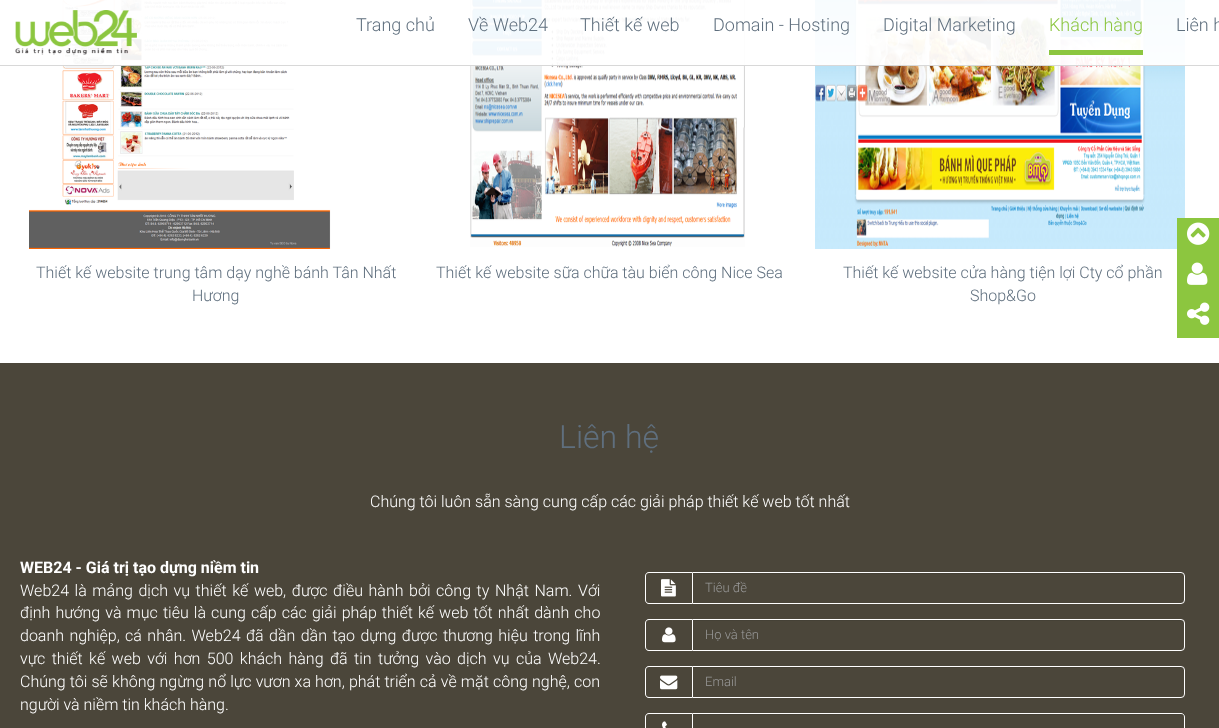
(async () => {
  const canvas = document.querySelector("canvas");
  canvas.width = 1219;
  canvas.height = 728;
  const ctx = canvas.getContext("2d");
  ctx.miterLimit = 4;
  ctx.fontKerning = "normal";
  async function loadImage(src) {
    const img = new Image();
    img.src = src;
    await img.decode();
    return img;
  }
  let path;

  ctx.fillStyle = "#ffffff";
  ctx.fillRect(0, 0, 1219, 728);
  ctx.drawImage(await loadImage("img/2.png"), 29, 0, 302, 249);
  ctx.drawImage(await loadImage("img/3.png"), 470, 0, 275, 247);
  ctx.drawImage(await loadImage("img/4.png"), 815, 0, 370, 249);
  ctx.fillStyle = "rgba(255, 255, 255, 0.95)";
  ctx.fillRect(62, 0, 1123, 65);
  ctx.fillStyle = "#d8d8d8";
  ctx.fillRect(0, 65, 1219, 1);
  ctx.drawImage(await loadImage("img/1.png"), 15, 10, 122, 45);
  ctx.fillStyle = "#8cc640";
  ctx.fillRect(1049, 50, 94, 5);
  ctx.fillStyle = "#4b463a";
  ctx.fillRect(0, 363, 1219, 365);
  ctx.fillStyle = "#ffffff";
  path = new Path2D("M649 572H692V604H649C647 604 645 602 645 600V576C645 574 647 572 649 572ZM649 573H692V603H649C647 603 646 602 646 600V576C646 574 647 573 649 573Z");
  ctx.fill(path, "evenodd");
  ctx.drawImage(await loadImage("img/5.png"), 661, 579, 15, 18);
  ctx.fillStyle = "#454136";
  path = new Path2D("M693 574H1181C1183 574 1184 575 1184 577C1184 575 1183 573 1181 573H693Z");
  ctx.fill(path);
  ctx.beginPath();
  ctx.roundRect(692.5, 572.5, 492, 31, [0, 3.5, 3.5, 0]);
  ctx.strokeStyle = "#ffffff";
  ctx.stroke();
  ctx.fillStyle = "#ffffff";
  path = new Path2D("M649 619H692V651H649C647 651 645 649 645 647V623C645 621 647 619 649 619ZM649 620H692V650H649C647 650 646 649 646 647V623C646 621 647 620 649 620Z");
  ctx.fill(path, "evenodd");
  ctx.drawImage(await loadImage("img/6.png"), 662, 627, 14, 16);
  ctx.fillStyle = "#454136";
  path = new Path2D("M693 621H1181C1183 621 1184 622 1184 624C1184 622 1183 620 1181 620H693Z");
  ctx.fill(path);
  ctx.beginPath();
  ctx.roundRect(692.5, 619.5, 492, 31, [0, 3.5, 3.5, 0]);
  ctx.stroke();
  ctx.fillStyle = "#ffffff";
  path = new Path2D("M649 666H692V698H649C647 698 645 696 645 694V670C645 668 647 666 649 666ZM649 667H692V697H649C647 697 646 696 646 694V670C646 668 647 667 649 667Z");
  ctx.fill(path, "evenodd");
  ctx.drawImage(await loadImage("img/7.png"), 660, 675, 18, 15);
  ctx.fillStyle = "#454136";
  path = new Path2D("M693 668H1181C1183 668 1184 669 1184 671C1184 669 1183 667 1181 667H693Z");
  ctx.fill(path);
  ctx.beginPath();
  ctx.roundRect(692.5, 666.5, 492, 31, [0, 3.5, 3.5, 0]);
  ctx.stroke();
  ctx.fillStyle = "#ffffff";
  path = new Path2D("M649 713H692V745H649C647 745 645 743 645 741V717C645 715 647 713 649 713ZM649 714H692V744H649C647 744 646 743 646 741V717C646 715 647 714 649 714Z");
  ctx.fill(path, "evenodd");
  ctx.drawImage(await loadImage("img/8.png"), 662, 721, 5, 7);
  ctx.fillStyle = "#454136";
  path = new Path2D("M693 715H1181C1183 715 1184 716 1184 718C1184 716 1183 714 1181 714H693Z");
  ctx.fill(path);
  path = new Path2D("M692.5 713.5H1181C1183 713.5 1184.5 715 1184.5 717V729C1184.5 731 1183 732.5 1181 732.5H692.5Z");
  ctx.stroke(path);
  ctx.fillStyle = "#8cc63f";
  ctx.fillRect(1177, 218, 42, 120);
  ctx.drawImage(await loadImage("img/9.png"), 1187, 222, 23, 23);
  ctx.drawImage(await loadImage("img/10.png"), 1187, 262, 21, 23);
  ctx.drawImage(await loadImage("img/11.png"), 1187, 302, 23, 23);
  ctx.font = "300 18px Roboto";
  ctx.fillStyle = "#5f6f7e";
  for (const [text, x, y] of [
    ["Trang chủ", 356, 31],
    ["Về Web24", 468, 31],
    ["Thiết kế web", 580, 31],
    ["Domain - Hosting", 713, 31],
    ["Digital Marketing", 883, 31],
  ]) {
    ctx.fillText(text, x, y);
  }
  ctx.fillStyle = "#8cc640";
  ctx.fillText("Khách hàng", 1049, 31);
  ctx.fillStyle = "#5f6f7e";
  ctx.fillText("Liên h", 1176, 31);
  ctx.font = "300 16px Roboto";
  for (const [text, x, y] of [
    ["Thiết kế website trung tâm dạy nghề bánh Tân Nhất", 36, 278],
    ["Hương", 192, 301],
    ["Thiết kế website sữa chữa tàu biển công Nice Sea", 436, 278],
    ["Thiết kế website cửa hàng tiện lợi Cty cổ phần", 843, 278],
    ["Shop&Go", 970, 301],
  ]) {
    ctx.fillText(text, x, y);
  }
  ctx.font = "300 32px Roboto";
  ctx.fillText("Liên hệ", 559, 448);
  ctx.font = "300 16px Roboto";
  ctx.fillStyle = "#ffffff";
  ctx.fillText("Chúng tôi luôn sẵn sàng cung cấp các giải pháp thiết kế web tốt nhất", 370, 507);
  ctx.font = "bold 16px Roboto";
  ctx.fillText("WEB24 - Giá trị tạo dựng niềm tin", 20, 573);
  ctx.wordSpacing = "1.7px";
  ctx.font = "300 16px Roboto";
  ctx.fillText("Web24 là mảng dịch vụ thiết kế web, được điều hành bởi công ty Nhật Nam. Với", 20, 596);
  ctx.wordSpacing = "1.2px";
  ctx.fillText("định hướng và mục tiêu là cung cấp các giải pháp thiết kế web tốt nhất dành cho", 20, 618);
  ctx.wordSpacing = "1.5px";
  ctx.fillText("doanh nghiệp, cá nhân. Web24 đã dần dần tạo dựng được thương hiệu trong lĩnh", 20, 641);
  ctx.wordSpacing = "2.5px";
  ctx.fillText("vực thiết kế web với hơn 500 khách hàng đã tin tưởng vào dịch vụ của Web24.", 20, 664);
  ctx.wordSpacing = "0.25px";
  ctx.fillText("Chúng tôi sẽ không ngừng nổ lực vươn xa hơn, phát triển cả về mặt công nghệ, con", 20, 687);
  ctx.wordSpacing = "0px";
  ctx.fillText("người và niềm tin khách hàng.", 20, 710);
  ctx.font = "300 13px Roboto";
  ctx.fillStyle = "#999999";
  for (const [text, x, y] of [
    ["Tiêu đề", 705, 592],
    ["Họ và tên", 705, 639],
    ["Email", 705, 686],
  ]) {
    ctx.fillText(text, x, y);
  }
})();
